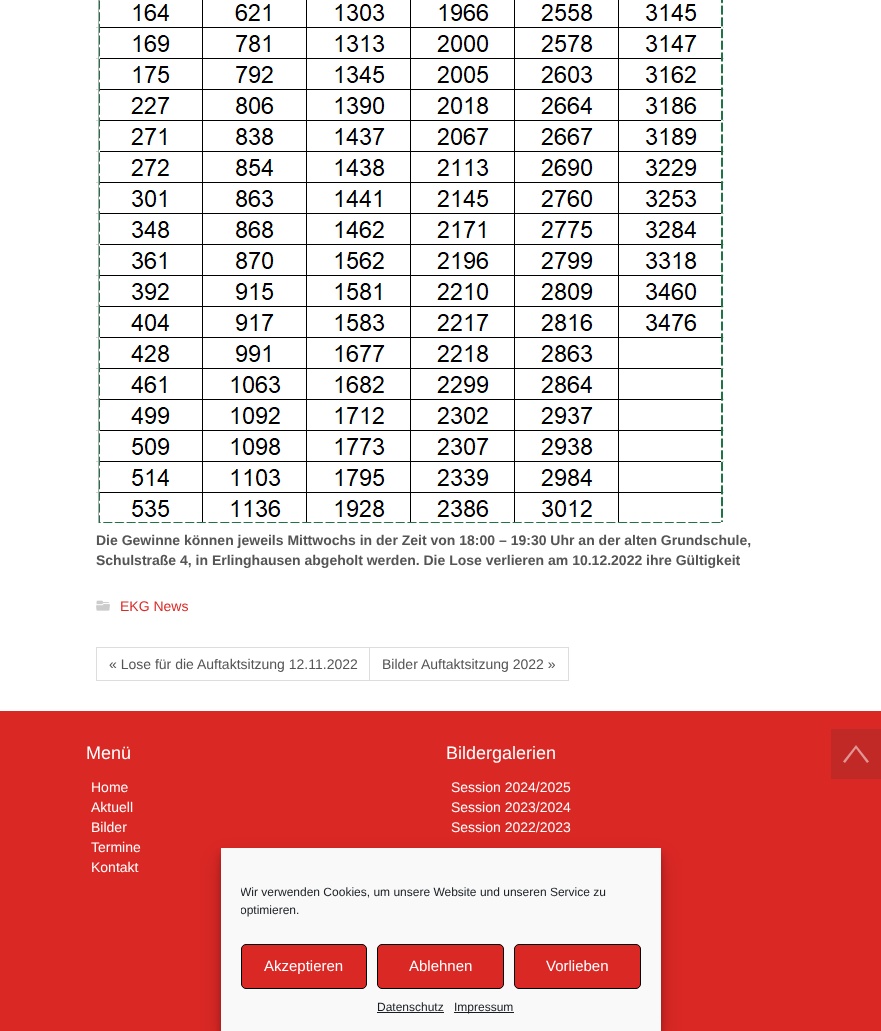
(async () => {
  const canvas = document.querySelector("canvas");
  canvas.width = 881;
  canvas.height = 1031;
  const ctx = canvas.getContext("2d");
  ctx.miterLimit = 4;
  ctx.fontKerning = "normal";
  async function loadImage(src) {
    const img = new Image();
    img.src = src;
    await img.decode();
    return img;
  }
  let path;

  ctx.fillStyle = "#ffffff";
  ctx.fillRect(0, 0, 881, 1031);
  ctx.drawImage(await loadImage("img/1.png"), 96, 0, 628, 523);
  ctx.drawImage(await loadImage("img/2.png"), 96, 600, 14, 11);
  ctx.strokeStyle = "#dddddd";
  ctx.strokeRect(96.5, 647.5, 273, 33);
  ctx.strokeRect(369.5, 647.5, 199, 33);
  ctx.fillStyle = "#da2825";
  ctx.fillRect(0, 711, 881, 320);
  ctx.fillStyle = "#c12926";
  ctx.fillRect(831, 729, 50, 50);
  ctx.fillStyle = "#e09493";
  path = new Path2D("M856 745L869 761.5L867 763L856 748.5L845 763L843 761.5Z");
  ctx.fill(path);
  ctx.fillStyle = "rgba(0, 0, 0, 0.23)";
  ctx.filter = "blur(3px)";
  ctx.beginPath();
  ctx.rect(221, 854, 440, 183);
  ctx.fill();
  ctx.filter = "none";
  ctx.fillStyle = "rgba(0, 0, 0, 0.19)";
  ctx.filter = "blur(10px)";
  ctx.beginPath();
  ctx.rect(221, 858, 440, 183);
  ctx.fill();
  ctx.filter = "none";
  ctx.fillStyle = "#f9f9f9";
  ctx.fillRect(221, 848, 440, 183);
  ctx.fillStyle = "#da2825";
  ctx.beginPath();
  ctx.roundRect(241.5, 944.5, 125, 44, 4.5);
  ctx.fill();
  ctx.strokeStyle = "#000000";
  ctx.stroke();
  ctx.beginPath();
  ctx.roundRect(377.5, 944.5, 126, 44, 4.5);
  ctx.fill();
  ctx.stroke();
  ctx.beginPath();
  ctx.roundRect(514.5, 944.5, 126, 44, 4.5);
  ctx.fill();
  ctx.stroke();
  ctx.fillStyle = "#191e23";
  ctx.fillRect(377, 1012, 67, 1);
  ctx.fillRect(454, 1012, 60, 1);
  ctx.font = "bold 14px Liberation Sans";
  ctx.fillStyle = "#555555";
  ctx.fillText("Die Gewinne können jeweils Mittwochs in der Zeit von 18:00 – 19:30 Uhr an der alten Grundschule,", 96, 545);
  ctx.fillText("Schulstraße 4, in Erlinghausen abgeholt werden. Die Lose verlieren am 10.12.2022 ihre Gültigkeit", 96, 565);
  ctx.font = "14px Liberation Sans";
  ctx.fillStyle = "#da2925";
  ctx.fillText("EKG News", 120, 611);
  ctx.fillStyle = "#555555";
  ctx.fillText("« Lose für die Auftaktsitzung 12.11.2022", 109, 669);
  ctx.fillText("Bilder Auftaktsitzung 2022 »", 382, 669);
  ctx.font = "18px Liberation Sans";
  ctx.fillStyle = "#ffffff";
  ctx.fillText("Menü", 86, 759);
  ctx.font = "14px Liberation Sans";
  for (const [text, x, y] of [
    ["Home", 91, 792],
    ["Aktuell", 91, 812],
    ["Bilder", 91, 832],
    ["Termine", 91, 852],
    ["Kontakt", 91, 872],
  ]) {
    ctx.fillText(text, x, y);
  }
  ctx.font = "18px Liberation Sans";
  ctx.fillText("Bildergalerien", 446, 759);
  ctx.font = "14px Liberation Sans";
  for (const [text, x, y] of [
    ["Session 2024/2025", 451, 792],
    ["Session 2023/2024", 451, 812],
    ["Session 2022/2023", 451, 832],
  ]) {
    ctx.fillText(text, x, y);
  }
  ctx.save();
  ctx.beginPath();
  ctx.rect(241, 883, 400, 41);
  ctx.clip();
  ctx.font = "12px Liberation Sans";
  ctx.fillStyle = "#191e23";
  ctx.fillText("Wir verwenden Cookies, um unsere Website und unseren Service zu", 240, 896);
  ctx.fillText("optimieren.", 240, 914);
  ctx.restore();
  ctx.font = "15px Liberation Sans";
  for (const [text, x, y] of [
    ["Akzeptieren", 264, 971],
    ["Ablehnen", 409, 971],
    ["Vorlieben", 546, 971],
  ]) {
    ctx.fillText(text, x, y);
  }
  ctx.font = "12px Liberation Sans";
  ctx.fillStyle = "#191e23";
  ctx.fillText("Datenschutz", 377, 1011);
  ctx.fillText("Impressum", 454, 1011);
})();
